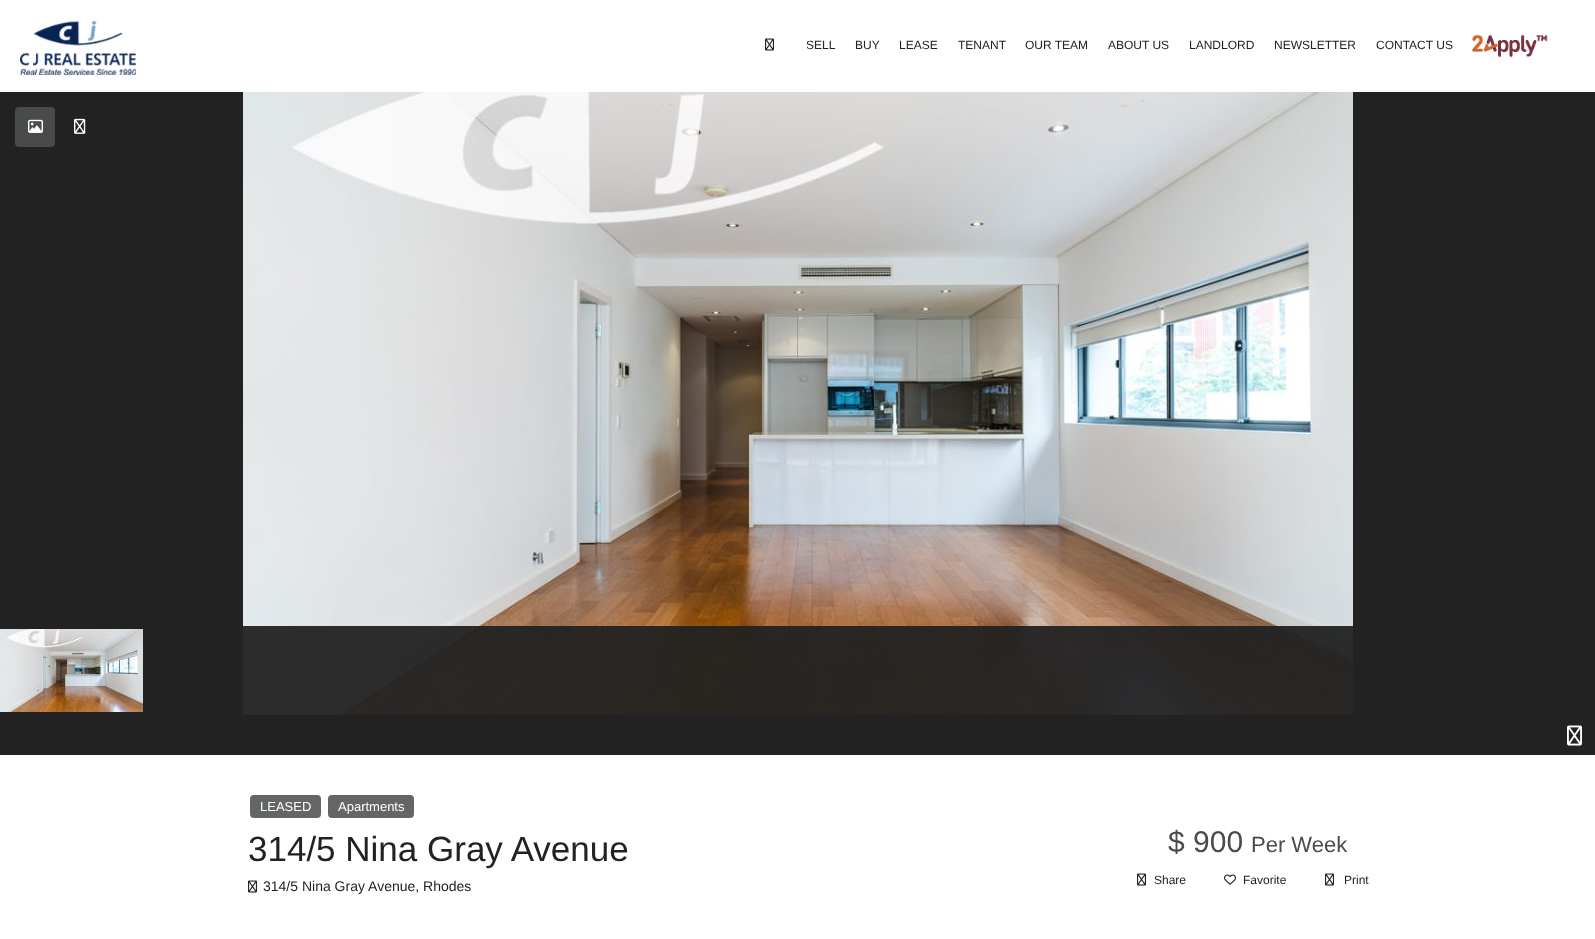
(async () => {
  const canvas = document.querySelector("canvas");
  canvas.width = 1595;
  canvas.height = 939;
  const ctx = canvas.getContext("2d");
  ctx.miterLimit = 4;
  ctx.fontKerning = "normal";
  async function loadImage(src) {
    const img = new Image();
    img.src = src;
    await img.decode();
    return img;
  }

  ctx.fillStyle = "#ffffff";
  ctx.fillRect(0, 0, 1595, 939);
  ctx.drawImage(await loadImage("img/1.png"), 20, 20, 116, 55);
  ctx.drawImage(await loadImage("img/2.png"), 765, 38, 9, 13);
  ctx.drawImage(await loadImage("img/3.png"), 1472, 34, 76, 23);
  ctx.fillStyle = "#222222";
  ctx.fillRect(0, 92, 1595, 663);
  ctx.drawImage(await loadImage("img/4.png"), 243, 92, 1110, 623);
  ctx.drawImage(await loadImage("img/5.png"), 0, 629, 143, 83);
  ctx.fillStyle = "rgba(34, 34, 34, 0.95)";
  ctx.fillRect(243, 626, 1110, 89);
  ctx.drawImage(await loadImage("img/6.png"), 1567, 725, 15, 21);
  ctx.fillStyle = "#494b4a";
  ctx.beginPath();
  ctx.roundRect(15, 107, 40, 40, 4);
  ctx.fill();
  ctx.drawImage(await loadImage("img/7.png"), 28, 119, 15, 14);
  ctx.drawImage(await loadImage("img/8.png"), 74, 118, 12, 16);
  ctx.fillStyle = "#646665";
  ctx.beginPath();
  ctx.roundRect(250, 795, 71, 23, 4);
  ctx.fill();
  ctx.beginPath();
  ctx.roundRect(328, 795, 86, 23, 4);
  ctx.fill();
  ctx.drawImage(await loadImage("img/2.png"), 248, 880, 9, 13);
  ctx.drawImage(await loadImage("img/2.png"), 1137, 873, 9, 13);
  ctx.drawImage(await loadImage("img/9.png"), 1224, 874, 12, 11);
  ctx.drawImage(await loadImage("img/2.png"), 1325, 873, 9, 13);
  ctx.font = "12px Liberation Sans";
  ctx.fillStyle = "#222222";
  for (const [text, x, y] of [
    ["SELL", 806, 49],
    ["BUY", 855, 49],
    ["LEASE", 899, 49],
    ["TENANT", 958, 49],
    ["OUR TEAM", 1025, 49],
    ["ABOUT US", 1108, 49],
    ["LANDLORD", 1189, 49],
    ["NEWSLETTER", 1274, 49],
    ["CONTACT US", 1376, 49],
  ]) {
    ctx.fillText(text, x, y);
  }
  ctx.font = "13px Liberation Sans";
  ctx.fillStyle = "#ffffff";
  ctx.fillText("LEASED", 260, 811);
  ctx.fillText("Apartments", 338, 811);
  ctx.font = "35px Liberation Sans";
  ctx.fillStyle = "#222222";
  ctx.fillText("314/5 Nina Gray Avenue", 248, 861);
  ctx.font = "30px Liberation Sans";
  ctx.fillStyle = "#494b4a";
  ctx.fillText("$ 900", 1168, 852);
  ctx.font = "22px Liberation Sans";
  ctx.fillText("Per Week", 1251, 852);
  ctx.font = "14px Liberation Sans";
  ctx.fillStyle = "#222222";
  ctx.fillText("314/5 Nina Gray Avenue, Rhodes", 263, 891);
  ctx.font = "12px Liberation Sans";
  for (const [text, x, y] of [
    ["Share", 1154, 884],
    ["Favorite", 1243, 884],
    ["Print", 1344, 884],
  ]) {
    ctx.fillText(text, x, y);
  }
})();
